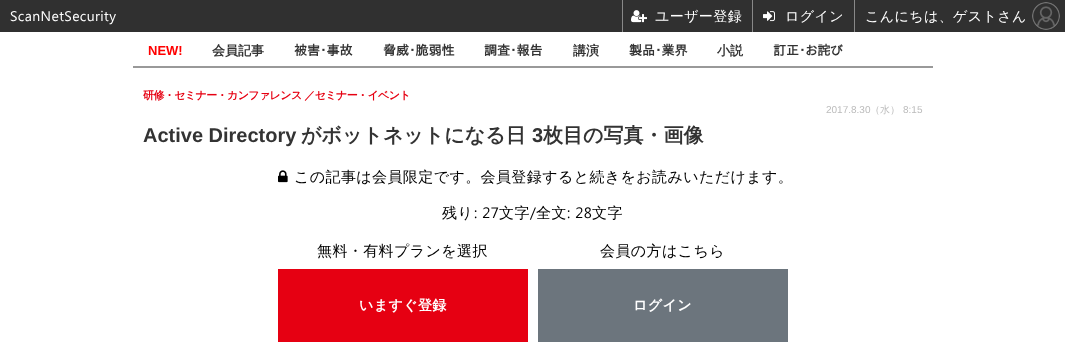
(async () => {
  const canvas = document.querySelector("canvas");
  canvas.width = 1065;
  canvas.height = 350;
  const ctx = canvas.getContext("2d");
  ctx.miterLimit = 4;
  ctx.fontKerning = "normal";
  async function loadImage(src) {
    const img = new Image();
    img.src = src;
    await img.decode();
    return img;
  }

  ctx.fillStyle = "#ffffff";
  ctx.fillRect(0, 0, 1065, 350);
  ctx.fillStyle = "#303030";
  ctx.fillRect(0, 0, 1065, 32);
  ctx.fillStyle = "#888888";
  ctx.fillRect(622, 0, 1, 32);
  ctx.drawImage(await loadImage("img/1.png"), 631, 10, 16, 13);
  ctx.fillRect(854, 0, 1, 32);
  ctx.fillRect(752, 0, 1, 32);
  ctx.drawImage(await loadImage("img/2.png"), 763, 11, 12, 11);
  ctx.drawImage(await loadImage("img/3.png"), 1032, 2, 28, 28);
  ctx.fillStyle = "#999999";
  ctx.fillRect(133, 66, 800, 2);
  ctx.drawImage(await loadImage("img/4.png"), 278, 170, 10, 13);
  ctx.fillStyle = "#e60012";
  ctx.fillRect(278, 269, 250, 73);
  ctx.fillStyle = "#6c757d";
  ctx.fillRect(538, 269, 250, 73);
  ctx.letterSpacing = "0.4px";
  ctx.font = "14px Segoe UI";
  ctx.fillStyle = "#ffffff";
  ctx.fillText("ScanNetSecurity", 10, 21);
  ctx.font = "500 14px WenQuanYi Zen Hei";
  for (const [text, x, y] of [
    ["ユーザー登録", 655, 21],
    ["ログイン", 785, 21],
    ["こんにちは、ゲストさん", 865, 21],
  ]) {
    ctx.fillText(text, x, y);
  }
  ctx.letterSpacing = "0px";
  ctx.font = "bold 13px Liberation Sans";
  ctx.fillStyle = "#ff0000";
  ctx.fillText("NEW!", 148, 55);
  ctx.font = "bold 13px WenQuanYi Zen Hei";
  ctx.fillStyle = "#333333";
  ctx.fillText("会員記事", 212, 55);
  ctx.font = "bold 13px IPAPGothic";
  for (const [text, x, y] of [
    ["被害･事故", 294, 55],
    ["脅威･脆弱性", 383, 55],
    ["調査･報告", 484, 55],
  ]) {
    ctx.fillText(text, x, y);
  }
  ctx.font = "bold 13px WenQuanYi Zen Hei";
  ctx.fillText("講演", 573, 55);
  ctx.font = "bold 13px IPAPGothic";
  ctx.fillText("製品･業界", 629, 55);
  ctx.font = "bold 13px WenQuanYi Zen Hei";
  ctx.fillText("小説", 717, 55);
  ctx.font = "bold 13px IPAPGothic";
  ctx.fillText("訂正･お詫び", 773, 55);
  ctx.letterSpacing = "-0.6px";
  ctx.font = "bold 11px WenQuanYi Zen Hei";
  ctx.fillStyle = "#e60012";
  ctx.fillText("研修・セミナー・カンファレンス ／セミナー・イベント", 143, 99);
  ctx.letterSpacing = "0px";
  ctx.font = "10px Liberation Sans";
  ctx.fillStyle = "#bbbbbb";
  ctx.fillText("2017.8.30", 826, 113);
  ctx.font = "500 10px WenQuanYi Zen Hei";
  ctx.fillText("（水）", 870, 113);
  ctx.font = "10px Liberation Sans";
  ctx.fillText("8:15", 903, 113);
  ctx.font = "bold 20px Liberation Sans";
  ctx.fillStyle = "#333333";
  ctx.fillText("Active Directory", 143, 142);
  ctx.font = "bold 20px WenQuanYi Zen Hei";
  ctx.fillText("がボットネットになる日", 301, 142);
  ctx.font = "bold 20px Liberation Sans";
  ctx.fillText("3", 532, 142);
  ctx.font = "bold 20px WenQuanYi Zen Hei";
  ctx.fillText("枚目の写真・画像", 543, 142);
  ctx.letterSpacing = "0.4px";
  ctx.font = "500 15px WenQuanYi Zen Hei";
  ctx.fillStyle = "#000000";
  ctx.fillText("この記事は会員限定です。会員登録すると続きをお読みいただけます。", 294, 182);
  ctx.fillText("残り", 442, 218);
  ctx.font = "15px Segoe UI";
  ctx.fillText(": 27", 474, 218);
  ctx.font = "500 15px WenQuanYi Zen Hei";
  ctx.fillText("文字", 499, 218);
  ctx.font = "15px Segoe UI";
  ctx.fillText("/", 530, 218);
  ctx.font = "500 15px WenQuanYi Zen Hei";
  ctx.fillText("全文", 536, 218);
  ctx.font = "15px Segoe UI";
  ctx.fillText(": 28", 567, 218);
  ctx.font = "500 15px WenQuanYi Zen Hei";
  ctx.fillText("文字", 592, 218);
  ctx.fillText("無料・有料プランを選択", 317, 256);
  ctx.font = "bold 14px WenQuanYi Zen Hei";
  ctx.fillStyle = "#ffffff";
  ctx.fillText("いますぐ登録", 359, 310);
  ctx.font = "500 15px WenQuanYi Zen Hei";
  ctx.fillStyle = "#000000";
  ctx.fillText("会員の方はこちら", 600, 256);
  ctx.font = "bold 14px WenQuanYi Zen Hei";
  ctx.fillStyle = "#ffffff";
  ctx.fillText("ログイン", 633, 310);
})();
